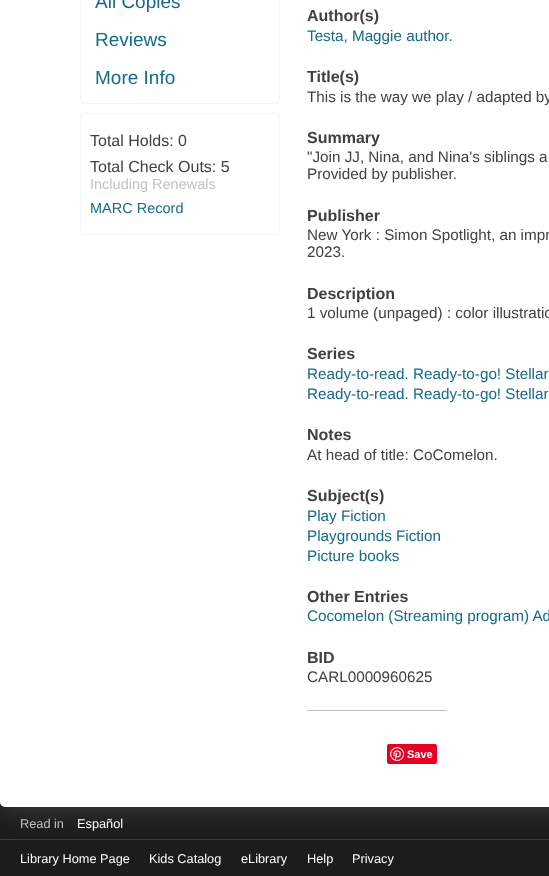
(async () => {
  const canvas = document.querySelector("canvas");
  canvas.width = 549;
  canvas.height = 876;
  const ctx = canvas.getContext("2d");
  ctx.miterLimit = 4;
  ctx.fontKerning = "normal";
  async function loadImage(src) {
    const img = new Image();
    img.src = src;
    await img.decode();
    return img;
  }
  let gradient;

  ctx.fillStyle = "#ffffff";
  ctx.fillRect(0, 0, 549, 876);
  gradient = ctx.createLinearGradient(500, 757, 500, 876);
  gradient.addColorStop(0, "#3a3a3a");
  gradient.addColorStop(0.3, "#1c1c1c");
  ctx.fillStyle = gradient;
  ctx.fillRect(0, 802, 549, 74);
  ctx.fillStyle = "#3c3c3c";
  ctx.fillRect(0, 839, 549, 1);
  ctx.fillStyle = "rgba(85, 85, 85, 0.7)";
  ctx.filter = "blur(15px)";
  ctx.beginPath();
  ctx.roundRect(0, -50, 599, 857, 5);
  ctx.fill();
  ctx.filter = "none";
  ctx.fillStyle = "#ffffff";
  ctx.beginPath();
  ctx.roundRect(0, -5, 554, 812, 5);
  ctx.fill();
  ctx.beginPath();
  ctx.roundRect(80.5, -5.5, 199, 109, 4.5);
  ctx.strokeStyle = "#f4f4f4";
  ctx.stroke();
  ctx.beginPath();
  ctx.roundRect(80.5, 113.5, 199, 121, 4.5);
  ctx.stroke();
  ctx.fillStyle = "#bfbfbf";
  ctx.fillRect(307, 710, 140, 1);
  ctx.fillStyle = "#e60023";
  ctx.beginPath();
  ctx.roundRect(387, 744, 50, 20, 2);
  ctx.fill();
  ctx.drawImage(await loadImage("img/1.png"), 390, 747, 14, 14);
  ctx.font = "19px Liberation Sans";
  ctx.fillStyle = "#15698c";
  for (const [text, x, y] of [
    ["All Copies", 95, 8],
    ["Reviews", 95, 46],
    ["More Info", 95, 84],
  ]) {
    ctx.fillText(text, x, y);
  }
  ctx.font = "16px Liberation Sans";
  ctx.fillStyle = "#404040";
  ctx.fillText("Total Holds: 0", 90, 146);
  ctx.fillText("Total Check Outs: 5", 90, 172);
  ctx.font = "14.5px Liberation Sans";
  ctx.fillStyle = "#c2c2c2";
  ctx.fillText("Including Renewals", 90, 189);
  ctx.fillStyle = "#15698c";
  ctx.fillText("MARC Record", 90, 213);
  ctx.font = "bold 16px Liberation Sans";
  ctx.fillStyle = "#404040";
  ctx.fillText("Author(s)", 307, 21);
  ctx.font = "15.25px Liberation Sans";
  ctx.fillStyle = "#15698c";
  ctx.fillText("Testa, Maggie author.", 307, 41);
  ctx.font = "bold 16px Liberation Sans";
  ctx.fillStyle = "#404040";
  ctx.fillText("Title(s)", 307, 82);
  ctx.font = "15.25px Liberation Sans";
  ctx.fillText("This is the way we play / adapted by", 307, 102);
  ctx.font = "bold 16px Liberation Sans";
  ctx.fillText("Summary", 307, 143);
  ctx.font = "15.25px Liberation Sans";
  ctx.fillText("\"Join JJ, Nina, and Nina's siblings a", 307, 162);
  ctx.fillText("Provided by publisher.", 307, 179);
  ctx.font = "bold 16px Liberation Sans";
  ctx.fillText("Publisher", 307, 221);
  ctx.font = "15.25px Liberation Sans";
  ctx.fillText("New York : Simon Spotlight, an impr", 307, 240);
  ctx.fillText("2023.", 307, 257);
  ctx.font = "bold 16px Liberation Sans";
  ctx.fillText("Description", 307, 299);
  ctx.font = "15.25px Liberation Sans";
  ctx.fillText("1 volume (unpaged) : color illustratio", 307, 318);
  ctx.font = "bold 16px Liberation Sans";
  ctx.fillText("Series", 307, 359);
  ctx.font = "15.25px Liberation Sans";
  ctx.fillStyle = "#15698c";
  ctx.fillText("Ready-to-read. Ready-to-go! Stellar", 307, 379);
  ctx.fillText("Ready-to-read. Ready-to-go! Stellar", 307, 399);
  ctx.font = "bold 16px Liberation Sans";
  ctx.fillStyle = "#404040";
  ctx.fillText("Notes", 307, 440);
  ctx.font = "15.25px Liberation Sans";
  ctx.fillText("At head of title: CoComelon.", 307, 460);
  ctx.font = "bold 16px Liberation Sans";
  ctx.fillText("Subject(s)", 307, 501);
  ctx.font = "15.25px Liberation Sans";
  ctx.fillStyle = "#15698c";
  for (const [text, x, y] of [
    ["Play Fiction", 307, 521],
    ["Playgrounds Fiction", 307, 541],
    ["Picture books", 307, 561],
  ]) {
    ctx.fillText(text, x, y);
  }
  ctx.font = "bold 16px Liberation Sans";
  ctx.fillStyle = "#404040";
  ctx.fillText("Other Entries", 307, 602);
  ctx.font = "15.25px Liberation Sans";
  ctx.fillStyle = "#15698c";
  ctx.fillText("Cocomelon (Streaming program) Ad", 307, 621);
  ctx.font = "bold 16px Liberation Sans";
  ctx.fillStyle = "#404040";
  ctx.fillText("BID", 307, 663);
  ctx.font = "15.25px Liberation Sans";
  ctx.fillText("CARL0000960625", 307, 682);
  ctx.font = "bold 11px Liberation Sans";
  ctx.fillStyle = "#ffffff";
  ctx.fillText("Save", 407, 758);
  ctx.font = "12.75px Liberation Sans";
  ctx.fillStyle = "#c2c2c2";
  ctx.fillText("Read in", 20, 828);
  ctx.fillStyle = "#ffffff";
  for (const [text, x, y] of [
    ["Español", 77, 828],
    ["Library Home Page", 20, 863],
    ["Kids Catalog", 149, 863],
    ["eLibrary", 241, 863],
    ["Help", 307, 863],
    ["Privacy", 352, 863],
  ]) {
    ctx.fillText(text, x, y);
  }
})();
